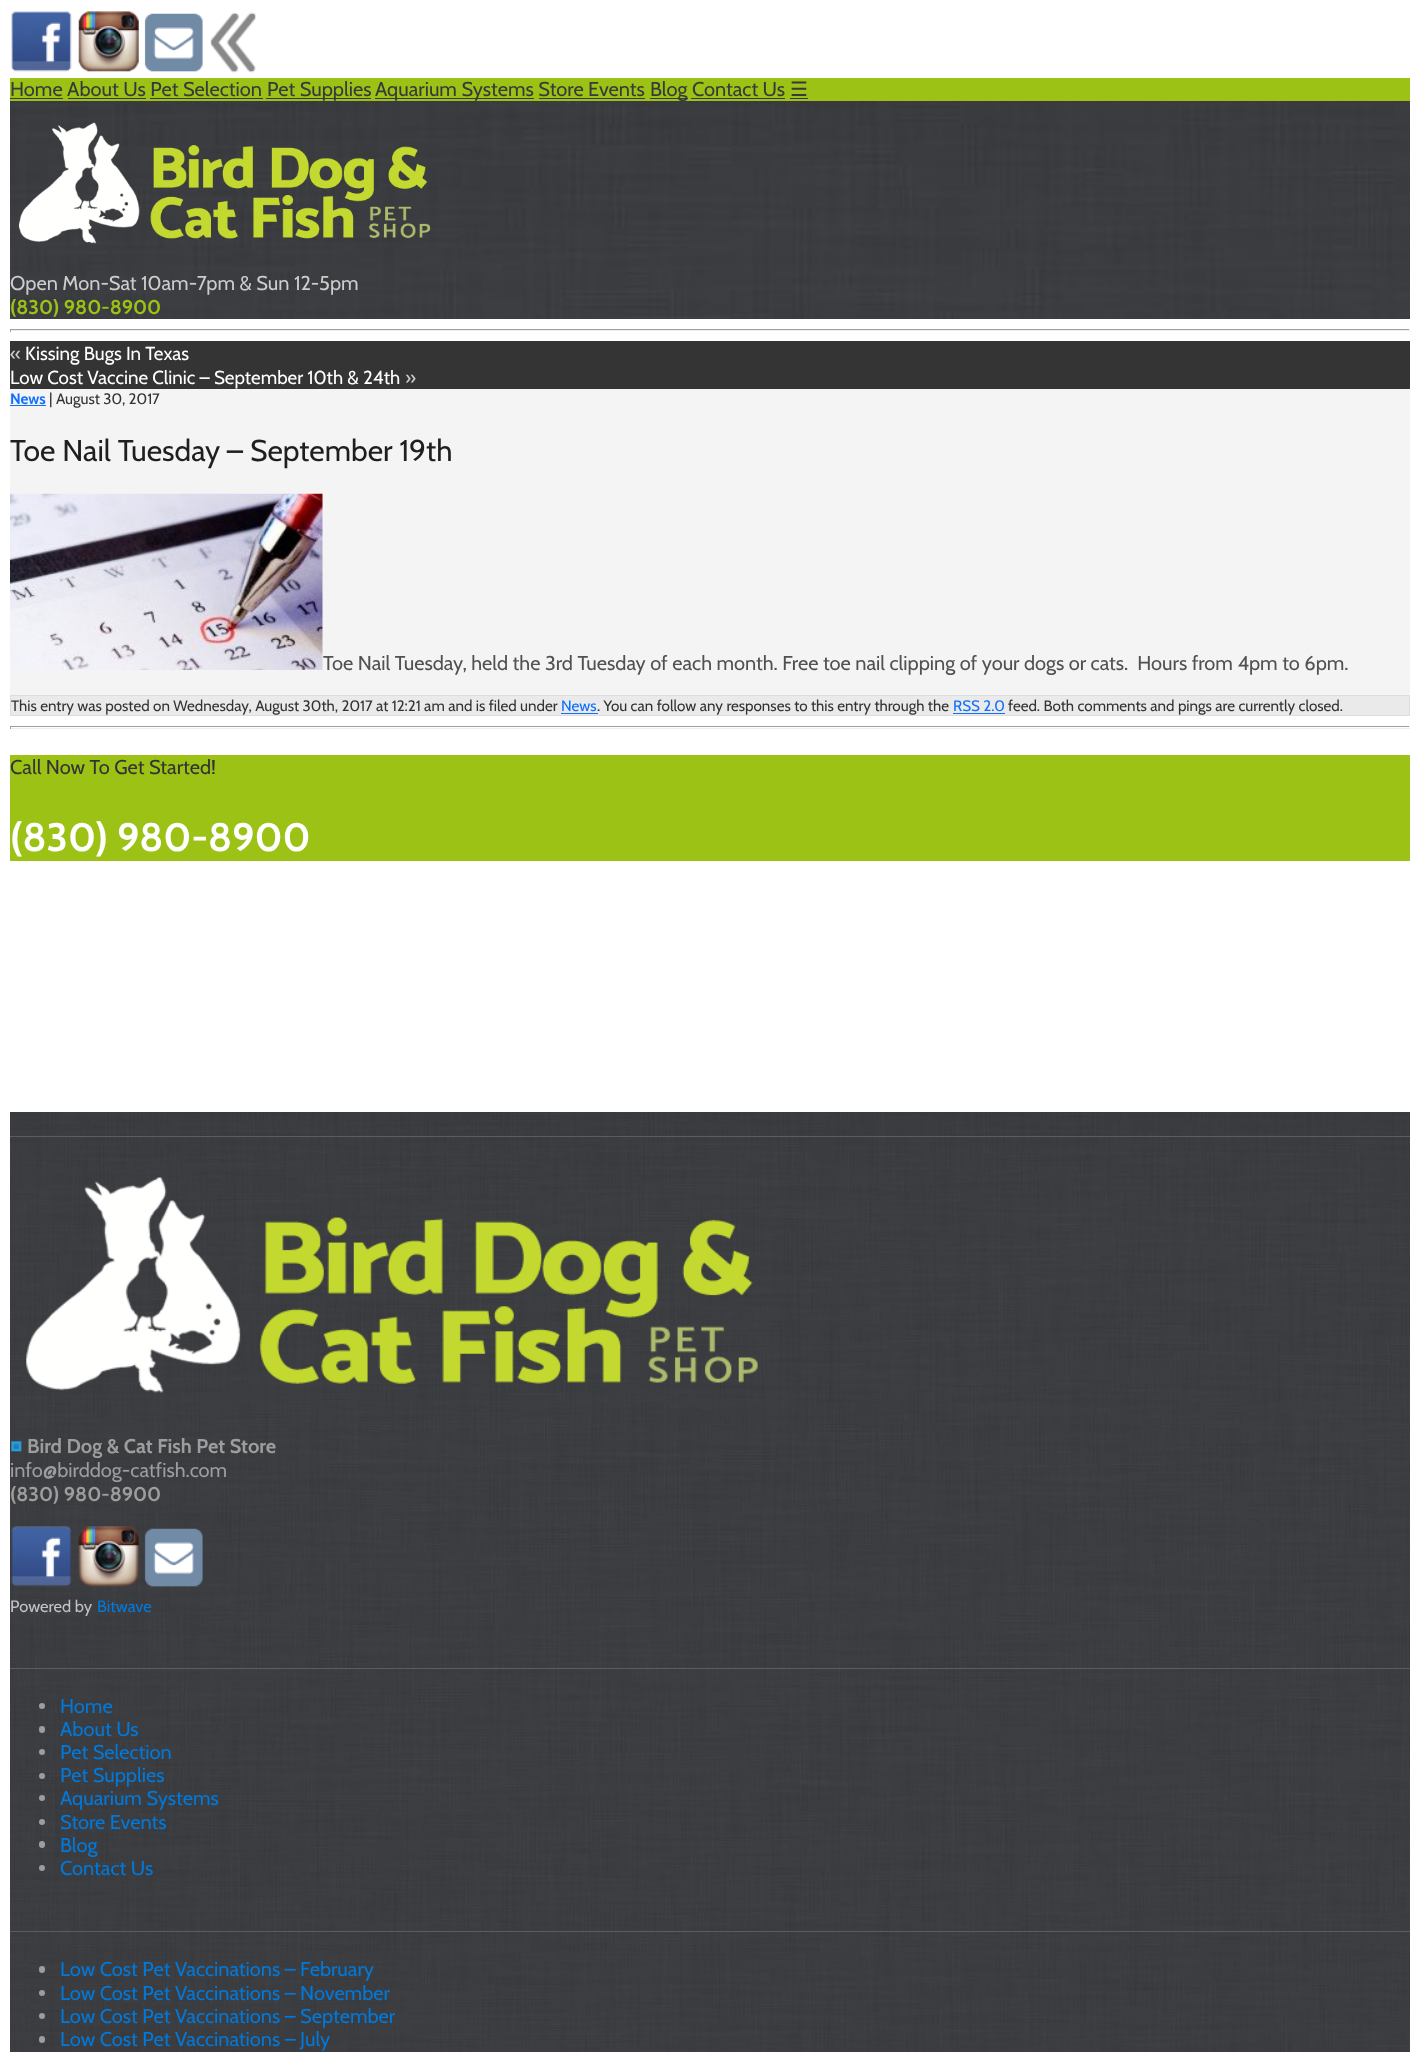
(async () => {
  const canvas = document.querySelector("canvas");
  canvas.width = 1419;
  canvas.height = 2072;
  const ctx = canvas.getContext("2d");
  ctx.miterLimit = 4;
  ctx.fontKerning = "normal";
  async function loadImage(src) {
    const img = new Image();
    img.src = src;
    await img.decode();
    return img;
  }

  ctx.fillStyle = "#ffffff";
  ctx.fillRect(0, 0, 1419, 2072);
  ctx.drawImage(await loadImage("img/1.png"), 11, 11, 61, 61);
  ctx.drawImage(await loadImage("img/2.png"), 78, 11, 61, 61);
  ctx.drawImage(await loadImage("img/3.png"), 144, 13, 59, 59);
  ctx.drawImage(await loadImage("img/4.png"), 210, 12, 46, 61);
  for (const [x, y, w, h, color] of [
    [10, 78, 1400, 23, "#9bc214"],
    [10, 98, 53, 1, "#38393d"],
    [266, 98, 105, 1, "#38393d"],
    [375, 98, 159, 1, "#38393d"],
    [650, 98, 38, 1, "#38393d"],
    [790, 98, 18, 1, "#38393d"],
    [68, 98, 78, 1, "#38393d"],
    [150, 98, 113, 1, "#38393d"],
    [539, 98, 106, 1, "#38393d"],
    [691, 98, 94, 1, "#38393d"],
  ]) {
    ctx.fillStyle = color;
    ctx.fillRect(x, y, w, h);
  }
  ctx.drawImage(await loadImage("img/5.png"), 10, 101, 1400, 218);
  ctx.drawImage(await loadImage("img/6.png"), 19, 122, 412, 122);
  for (const [x, y, w, h, color] of [
    [10, 329, 1400, 1, "#9f9f9f"],
    [1409, 329, 1, 3, "#eeeeee"],
    [10, 330, 1400, 1, "#eeeeee"],
    [10, 329, 1, 3, "#9f9f9f"],
    [10, 341, 1400, 48, "#343434"],
    [10, 389, 1400, 306, "#f4f4f4"],
    [10, 405, 36, 1, "#0f6fff"],
  ]) {
    ctx.fillStyle = color;
    ctx.fillRect(x, y, w, h);
  }
  ctx.drawImage(await loadImage("img/7.png"), 10, 493, 313, 177);
  ctx.fillStyle = "#eaeaea";
  ctx.beginPath();
  ctx.rect(10.5, 695.5, 1399, 20);
  ctx.fill();
  ctx.strokeStyle = "#dddddd";
  ctx.stroke();
  for (const [x, y, w, h, color] of [
    [561, 713, 37, 1, "#0f6fff"],
    [953, 713, 52, 1, "#0f6fff"],
    [10, 726, 1400, 1, "#9f9f9f"],
    [1409, 726, 1, 3, "#eeeeee"],
    [10, 728, 1400, 1, "#eeeeee"],
    [10, 726, 1, 3, "#9f9f9f"],
    [10, 755, 1400, 106, "#9bc214"],
  ]) {
    ctx.fillStyle = color;
    ctx.fillRect(x, y, w, h);
  }
  ctx.drawImage(await loadImage("img/8.png"), 10, 1112, 1400, 940);
  ctx.fillStyle = "#5d5d5d";
  ctx.fillRect(10, 1136, 1400, 1);
  ctx.drawImage(await loadImage("img/9.png"), 26, 1177, 732, 216);
  ctx.drawImage(await loadImage("img/10.png"), 11, 1441, 11, 11);
  ctx.drawImage(await loadImage("img/11.png"), 11, 1526, 61, 61);
  ctx.drawImage(await loadImage("img/12.png"), 78, 1526, 61, 61);
  ctx.drawImage(await loadImage("img/13.png"), 144, 1528, 59, 59);
  ctx.fillRect(10, 1668, 1400, 1);
  ctx.fillStyle = "#9d9d9d";
  ctx.beginPath();
  ctx.arc(42, 1706, 3, 0, Math.PI * 2);
  ctx.fill();
  ctx.beginPath();
  ctx.roundRect(39, 1726, 6, 7, 3);
  ctx.fill();
  ctx.beginPath();
  ctx.arc(42, 1752, 3, 0, Math.PI * 2);
  ctx.fill();
  ctx.beginPath();
  ctx.arc(42, 1776, 3, 0, Math.PI * 2);
  ctx.fill();
  ctx.beginPath();
  ctx.arc(42, 1798, 3, 0, Math.PI * 2);
  ctx.fill();
  ctx.beginPath();
  ctx.arc(42, 1822, 3, 0, Math.PI * 2);
  ctx.fill();
  ctx.beginPath();
  ctx.roundRect(39, 1841, 6, 7, 3);
  ctx.fill();
  ctx.beginPath();
  ctx.arc(42, 1868, 3, 0, Math.PI * 2);
  ctx.fill();
  ctx.fillStyle = "#5d5d5d";
  ctx.fillRect(10, 1931, 1400, 1);
  ctx.fillStyle = "#9d9d9d";
  ctx.beginPath();
  ctx.roundRect(39, 1966, 6, 7, 3);
  ctx.fill();
  ctx.beginPath();
  ctx.arc(42, 1993, 3, 0, Math.PI * 2);
  ctx.fill();
  ctx.beginPath();
  ctx.arc(42, 2016, 3, 0, Math.PI * 2);
  ctx.fill();
  ctx.beginPath();
  ctx.roundRect(39, 2036, 6, 7, 3);
  ctx.fill();
  ctx.font = "20px Cabin";
  ctx.fillStyle = "#38393d";
  for (const [text, x, y] of [
    ["Home About Us Pet Selection", 10, 96],
    ["Pet Supplies", 267, 96],
    ["Aquarium Systems Store Events", 375, 96],
    ["Blog Contact Us", 650, 96],
  ]) {
    ctx.fillText(text, x, y);
  }
  ctx.font = "20px DejaVu Sans";
  ctx.fillText("☰", 790, 96);
  ctx.font = "20px Cabin";
  ctx.fillStyle = "#cccccc";
  ctx.fillText("Open Mon-Sat 10am-7pm & Sun 12-5pm", 10, 290);
  ctx.font = "bold 20px Cabin";
  ctx.fillStyle = "#9bc214";
  ctx.fillText("(830) 980-8900", 10, 314);
  ctx.font = "18.8px Cabin";
  ctx.fillStyle = "#cccccc";
  ctx.fillText("«", 10, 360);
  ctx.fillStyle = "#ffffff";
  ctx.fillText("Kissing Bugs In Texas", 25, 360);
  ctx.fillText("Low Cost Vaccine Clinic – September 10th & 24th", 10, 384);
  ctx.fillStyle = "#cccccc";
  ctx.fillText("»", 405, 384);
  ctx.font = "bold 15.2px Cabin";
  ctx.fillStyle = "#0f6fff";
  ctx.fillText("News", 10, 404);
  ctx.font = "15.2px Cabin";
  ctx.fillStyle = "#333333";
  ctx.fillText("| August 30, 2017", 49, 404);
  ctx.font = "30px Cabin";
  ctx.fillStyle = "#1f1f1f";
  ctx.fillText("Toe Nail Tuesday – September 19th", 10, 461);
  ctx.font = "20px Cabin";
  ctx.fillStyle = "#515151";
  ctx.fillText("Toe Nail Tuesday, held the 3rd Tuesday of each month. Free toe nail clipping of your dogs or cats.  Hours from 4pm to 6pm.", 323, 670);
  ctx.font = "15.2px Cabin";
  ctx.fillStyle = "#333333";
  ctx.fillText("This entry was posted on Wednesday, August 30th, 2017 at 12:21 am and is filed under", 11, 711);
  ctx.fillStyle = "#0f6fff";
  ctx.fillText("News", 561, 711);
  ctx.fillStyle = "#333333";
  ctx.fillText(". You can follow any responses to this entry through the", 597, 711);
  ctx.fillStyle = "#0f6fff";
  ctx.fillText("RSS 2.0", 953, 711);
  ctx.fillStyle = "#333333";
  ctx.fillText("feed. Both comments and pings are currently closed.", 1008, 711);
  ctx.font = "20px Cabin";
  ctx.fillText("Call Now To Get Started!", 10, 774);
  ctx.font = "bold 39.75px Cabin";
  ctx.fillStyle = "#ffffff";
  ctx.fillText("(830) 980-8900", 10, 851);
  ctx.font = "bold 20px Cabin";
  ctx.fillStyle = "#9d9d9d";
  ctx.fillText("Bird Dog & Cat Fish Pet Store", 27, 1453);
  ctx.font = "20px Cabin";
  ctx.fillText("info@birddog-catfish.com", 10, 1477);
  ctx.font = "bold 20px Cabin";
  ctx.fillText("(830) 980-8900", 10, 1501);
  ctx.font = "16.5px Cabin";
  ctx.fillStyle = "#c2c2c2";
  ctx.fillText("Powered by", 10, 1612);
  ctx.fillStyle = "#0079db";
  ctx.fillText("Bitwave", 97, 1612);
  ctx.font = "20px Cabin";
  for (const [text, x, y] of [
    ["Home", 60, 1713],
    ["About Us", 60, 1736],
    ["Pet Selection", 60, 1759],
    ["Pet Supplies", 60, 1782],
    ["Aquarium Systems", 60, 1805],
    ["Store Events", 60, 1829],
    ["Blog", 60, 1852],
    ["Contact Us", 60, 1875],
    ["Low Cost Pet Vaccinations – February", 60, 1976],
    ["Low Cost Pet Vaccinations – November", 60, 2000],
    ["Low Cost Pet Vaccinations – September", 60, 2023],
    ["Low Cost Pet Vaccinations – July", 60, 2046],
  ]) {
    ctx.fillText(text, x, y);
  }
})();
